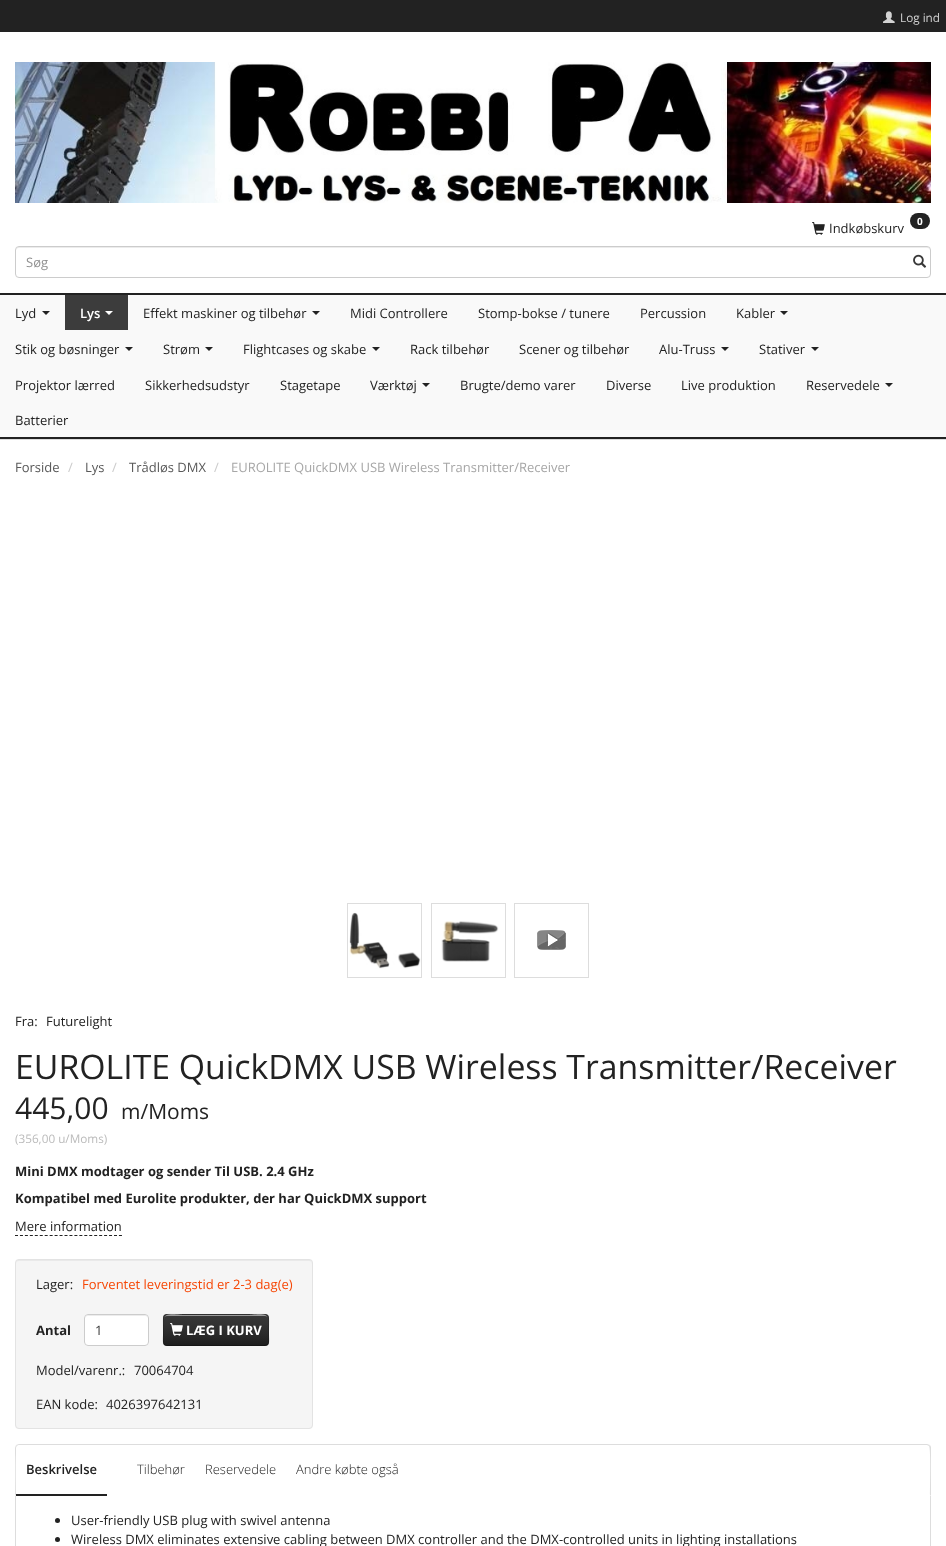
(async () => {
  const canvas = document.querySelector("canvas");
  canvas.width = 946;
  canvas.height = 1546;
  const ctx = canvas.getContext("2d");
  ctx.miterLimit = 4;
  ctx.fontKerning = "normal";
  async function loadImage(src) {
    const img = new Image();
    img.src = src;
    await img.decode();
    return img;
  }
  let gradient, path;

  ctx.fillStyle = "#ffffff";
  ctx.fillRect(0, 0, 946, 1546);
  ctx.fillStyle = "#222222";
  ctx.fillRect(0, 0, 946, 32);
  ctx.drawImage(await loadImage("img/1.png"), 883, 11, 12, 12);
  ctx.drawImage(await loadImage("img/2.png"), 15, 62, 916, 141);
  ctx.drawImage(await loadImage("img/3.png"), 812, 222, 13, 13);
  ctx.beginPath();
  ctx.roundRect(910, 213, 20, 16, 8);
  ctx.fill();
  ctx.fillStyle = "#ececec";
  path = new Path2D("M19 248H927C929 248 930 249 930 251C930 249 929 247 927 247H19C17 247 16 249 16 251C16 249 17 248 19 248Z");
  ctx.fill(path);
  ctx.beginPath();
  ctx.roundRect(15.5, 246.5, 915, 31, 3.5);
  ctx.strokeStyle = "#cccccc";
  ctx.stroke();
  ctx.drawImage(await loadImage("img/4.png"), 913, 254, 14, 14);
  for (const [x, y, w, h, color] of [
    [0, 295, 946, 142, "#f9f9f9"],
    [0, 293, 946, 2, "#222222"],
    [0, 437, 946, 2, "#222222"],
  ]) {
    ctx.fillStyle = color;
    ctx.fillRect(x, y, w, h);
  }
  path = new Path2D("M42 311H50L46 315Z");
  ctx.fill(path);
  ctx.fillStyle = "#3c3c3c";
  ctx.fillRect(65, 295, 63, 35);
  ctx.fillStyle = "#ffffff";
  path = new Path2D("M105 311H113L109 315Z");
  ctx.fill(path);
  ctx.fillStyle = "#222222";
  path = new Path2D("M312 311H320L316 315Z");
  ctx.fill(path);
  path = new Path2D("M780 311H788L784 315Z");
  ctx.fill(path);
  path = new Path2D("M125 347H133L129 351Z");
  ctx.fill(path);
  path = new Path2D("M205 347H213L209 351Z");
  ctx.fill(path);
  path = new Path2D("M372 347H380L376 351Z");
  ctx.fill(path);
  path = new Path2D("M721 347H729L725 351Z");
  ctx.fill(path);
  path = new Path2D("M811 347H819L815 351Z");
  ctx.fill(path);
  path = new Path2D("M422 383H430L426 387Z");
  ctx.fill(path);
  path = new Path2D("M885 383H893L889 387Z");
  ctx.fill(path);
  ctx.fillStyle = "#dddddd";
  ctx.fillRect(0, 439, 946, 1);
  ctx.strokeStyle = "#dddddd";
  ctx.strokeRect(347.5, 903.5, 74, 74);
  ctx.drawImage(await loadImage("img/5.png"), 349, 912, 72, 57);
  ctx.strokeRect(431.5, 903.5, 74, 74);
  ctx.drawImage(await loadImage("img/6.png"), 441, 921, 58, 41);
  ctx.strokeRect(514.5, 903.5, 74, 74);
  ctx.drawImage(await loadImage("img/7.png"), 537, 930, 29, 20);
  path = new Path2D("M15 1235.5H122");
  ctx.strokeStyle = "#222222";
  ctx.setLineDash([3, 1.95]);
  ctx.stroke(path);
  ctx.fillStyle = "#f5f5f5";
  ctx.beginPath();
  ctx.roundRect(15, 1259, 298, 170, 4);
  ctx.fill();
  ctx.fillStyle = "#e9e9e9";
  path = new Path2D("M19 1261H309C311 1261 312 1262 312 1264L311 1261L310 1260H19C17 1260 16 1262 16 1264C16 1262 17 1261 19 1261Z");
  ctx.fill(path);
  ctx.beginPath();
  ctx.roundRect(15.5, 1259.5, 297, 169, 3.5);
  ctx.strokeStyle = "#e3e3e3";
  ctx.setLineDash([]);
  ctx.stroke();
  ctx.fillStyle = "#ffffff";
  ctx.beginPath();
  ctx.roundRect(84, 1314, 65, 32, 4);
  ctx.fill();
  ctx.fillStyle = "#ececec";
  path = new Path2D("M88 1316H145C147 1316 148 1317 148 1319C148 1313 140 1315 136 1315H98C93 1315 85 1313 85 1319C85 1317 86 1316 88 1316Z");
  ctx.fill(path);
  ctx.beginPath();
  ctx.roundRect(84.5, 1314.5, 64, 31, 3.5);
  ctx.strokeStyle = "#cccccc";
  ctx.stroke();
  ctx.fillStyle = "#222222";
  ctx.beginPath();
  ctx.roundRect(163, 1314, 106, 32, 4);
  ctx.fill();
  gradient = ctx.createLinearGradient(216, 1314, 216, 1346);
  gradient.addColorStop(0, "rgba(255, 255, 255, 0.1)");
  gradient.addColorStop(1, "rgba(0, 0, 0, 0.15)");
  ctx.fillStyle = gradient;
  ctx.beginPath();
  ctx.roundRect(163, 1314, 106, 32, 4);
  ctx.fill();
  ctx.fillStyle = "#9b9b9b";
  path = new Path2D("M167 1316H265C267 1316 268 1317 268 1319C268 1311 251 1315 249 1315H183C181 1315 164 1311 164 1319C164 1317 165 1316 167 1316Z");
  ctx.fill(path);
  path = new Path2D("M267.5 1344.5L265 1345.5H166.5L164.5 1344.5");
  ctx.strokeStyle = "rgba(0, 0, 0, 0.25)";
  ctx.stroke(path);
  path = new Path2D("M164.5 1344.5C162 1342 163.5 1337 163.5 1334C163.5 1311 159.5 1314.5 183.5 1314.5H248.5C272.5 1314.5 268.5 1311 268.5 1334C268.5 1337 270 1342 267.5 1344.5");
  ctx.strokeStyle = "rgba(0, 0, 0, 0.15)";
  ctx.stroke(path);
  ctx.drawImage(await loadImage("img/8.png"), 170, 1323, 13, 13);
  ctx.fillStyle = "#dddddd";
  path = new Path2D("M19 1444L16 1445L17 1446L19 1445H927L929 1446L930 1445L927 1444Z");
  ctx.fill(path);
  path = new Path2D("M931 1496V1447L930 1445L929 1446C931 1448 930 1489 930 1495Z");
  ctx.fill(path);
  path = new Path2D("M15 1496L16 1495C16 1489 15 1448 17 1446L16 1445L15 1448Z");
  ctx.fill(path);
  ctx.fillStyle = "#ffffff";
  ctx.beginPath();
  ctx.roundRect(16, 1445, 91, 51, [4, 0, 0, 0]);
  ctx.fill();
  ctx.fillStyle = "#222222";
  ctx.fillRect(16, 1494, 91, 2);
  ctx.fillStyle = "#dddddd";
  path = new Path2D("M15 1496H931V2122C931 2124 929 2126 927 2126H19C17 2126 15 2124 15 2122ZM16 1496H930V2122C930 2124 929 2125 927 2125H19C17 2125 16 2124 16 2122Z");
  ctx.fill(path, "evenodd");
  ctx.fillStyle = "#222222";
  ctx.beginPath();
  ctx.arc(57.5, 1520.5, 2.5, 0, Math.PI * 2);
  ctx.fill();
  ctx.beginPath();
  ctx.arc(57.5, 1539.5, 2.5, 0, Math.PI * 2);
  ctx.fill();
  ctx.font = "11.75px Open Sans";
  ctx.fillStyle = "#d3d3d3";
  ctx.fillText("Log ind", 900, 22);
  ctx.font = "13px Open Sans";
  ctx.fillStyle = "#222222";
  ctx.fillText("Indkøbskurv", 829, 233);
  ctx.font = "bold 10px Open Sans";
  ctx.fillStyle = "#ffffff";
  ctx.fillText("0", 917, 225);
  ctx.font = "13px Open Sans";
  ctx.fillStyle = "#919191";
  ctx.fillText("Søg", 26, 267);
  ctx.fillStyle = "#222222";
  ctx.fillText("Lyd", 15, 318);
  ctx.font = "600 13px Open Sans";
  ctx.fillStyle = "#ffffff";
  ctx.fillText("Lys", 80, 318);
  ctx.font = "13px Open Sans";
  ctx.fillStyle = "#222222";
  for (const [text, x, y] of [
    ["Effekt maskiner og tilbehør", 143, 318],
    ["Midi Controllere", 350, 318],
    ["Stomp-bokse / tunere", 478, 318],
    ["Percussion", 640, 318],
    ["Kabler", 736, 318],
    ["Stik og bøsninger", 15, 354],
    ["Strøm", 163, 354],
    ["Flightcases og skabe", 243, 354],
    ["Rack tilbehør", 410, 354],
    ["Scener og tilbehør", 519, 354],
    ["Alu-Truss", 659, 354],
    ["Stativer", 759, 354],
    ["Projektor lærred", 15, 390],
    ["Sikkerhedsudstyr", 145, 390],
    ["Stagetape", 280, 390],
    ["Værktøj", 370, 390],
    ["Brugte/demo varer", 460, 390],
    ["Diverse", 606, 390],
    ["Live produktion", 681, 390],
    ["Reservedele", 806, 390],
    ["Batterier", 15, 425],
  ]) {
    ctx.fillText(text, x, y);
  }
  ctx.fillStyle = "#595959";
  ctx.fillText("Forside", 15, 472);
  ctx.fillStyle = "#cccccc";
  ctx.fillText("/", 68, 472);
  ctx.fillStyle = "#595959";
  ctx.fillText("Lys", 85, 472);
  ctx.fillStyle = "#cccccc";
  ctx.fillText("/", 112, 472);
  ctx.fillStyle = "#595959";
  ctx.fillText("Trådløs DMX", 129, 472);
  ctx.fillStyle = "#cccccc";
  ctx.fillText("/", 214, 472);
  ctx.fillStyle = "#a7a7a7";
  ctx.fillText("EUROLITE QuickDMX USB Wireless Transmitter/Receiver", 231, 472);
  ctx.fillStyle = "#222222";
  ctx.fillText("Fra:", 15, 1026);
  ctx.fillText("Futurelight", 46, 1026);
  ctx.font = "33.8px Open Sans";
  ctx.fillText("EUROLITE QuickDMX USB Wireless Transmitter/Receiver", 15, 1079);
  ctx.font = "30px Open Sans";
  ctx.fillText("445,00", 15, 1119);
  ctx.font = "21px Open Sans";
  ctx.fillText("m/Moms", 121, 1119);
  ctx.font = "11.75px Open Sans";
  ctx.fillStyle = "#bbbbbb";
  ctx.fillText("(356,00 u/Moms)", 15, 1143);
  ctx.font = "bold 13px Open Sans";
  ctx.fillStyle = "#222222";
  ctx.fillText("Mini DMX modtager og sender Til USB. 2.4 GHz", 15, 1176);
  ctx.fillText("Kompatibel med Eurolite produkter, der har QuickDMX support", 15, 1203);
  ctx.font = "13px Open Sans";
  ctx.fillText("Mere information", 15, 1231);
  ctx.fillText("Lager:", 36, 1289);
  ctx.fillStyle = "#f64705";
  ctx.fillText("Forventet leveringstid er 2-3 dag(e)", 82, 1289);
  ctx.font = "bold 13px Open Sans";
  ctx.fillStyle = "#222222";
  ctx.fillText("Antal", 36, 1335);
  ctx.font = "13px Open Sans";
  ctx.fillStyle = "#383838";
  ctx.fillText("1", 95, 1335);
  ctx.font = "bold 13px Open Sans";
  ctx.fillStyle = "#ffffff";
  ctx.fillText("LÆG I KURV", 186, 1335);
  ctx.font = "13px Open Sans";
  ctx.fillStyle = "#222222";
  for (const [text, x, y] of [
    ["Model/varenr.:", 36, 1375],
    ["70064704", 134, 1375],
    ["EAN kode:", 36, 1409],
    ["4026397642131", 106, 1409],
  ]) {
    ctx.fillText(text, x, y);
  }
  ctx.font = "600 13px Open Sans";
  ctx.fillText("Beskrivelse", 26, 1474);
  ctx.font = "300 13px Open Sans";
  for (const [text, x, y] of [
    ["Tilbehør", 137, 1474],
    ["Reservedele", 205, 1474],
    ["Andre købte også", 296, 1474],
  ]) {
    ctx.fillText(text, x, y);
  }
  ctx.font = "13px Open Sans";
  ctx.fillText("User-friendly USB plug with swivel antenna", 71, 1525);
  ctx.fillText("Wireless DMX eliminates extensive cabling between DMX controller and the DMX-controlled units in lighting installations", 71, 1544);
})();
